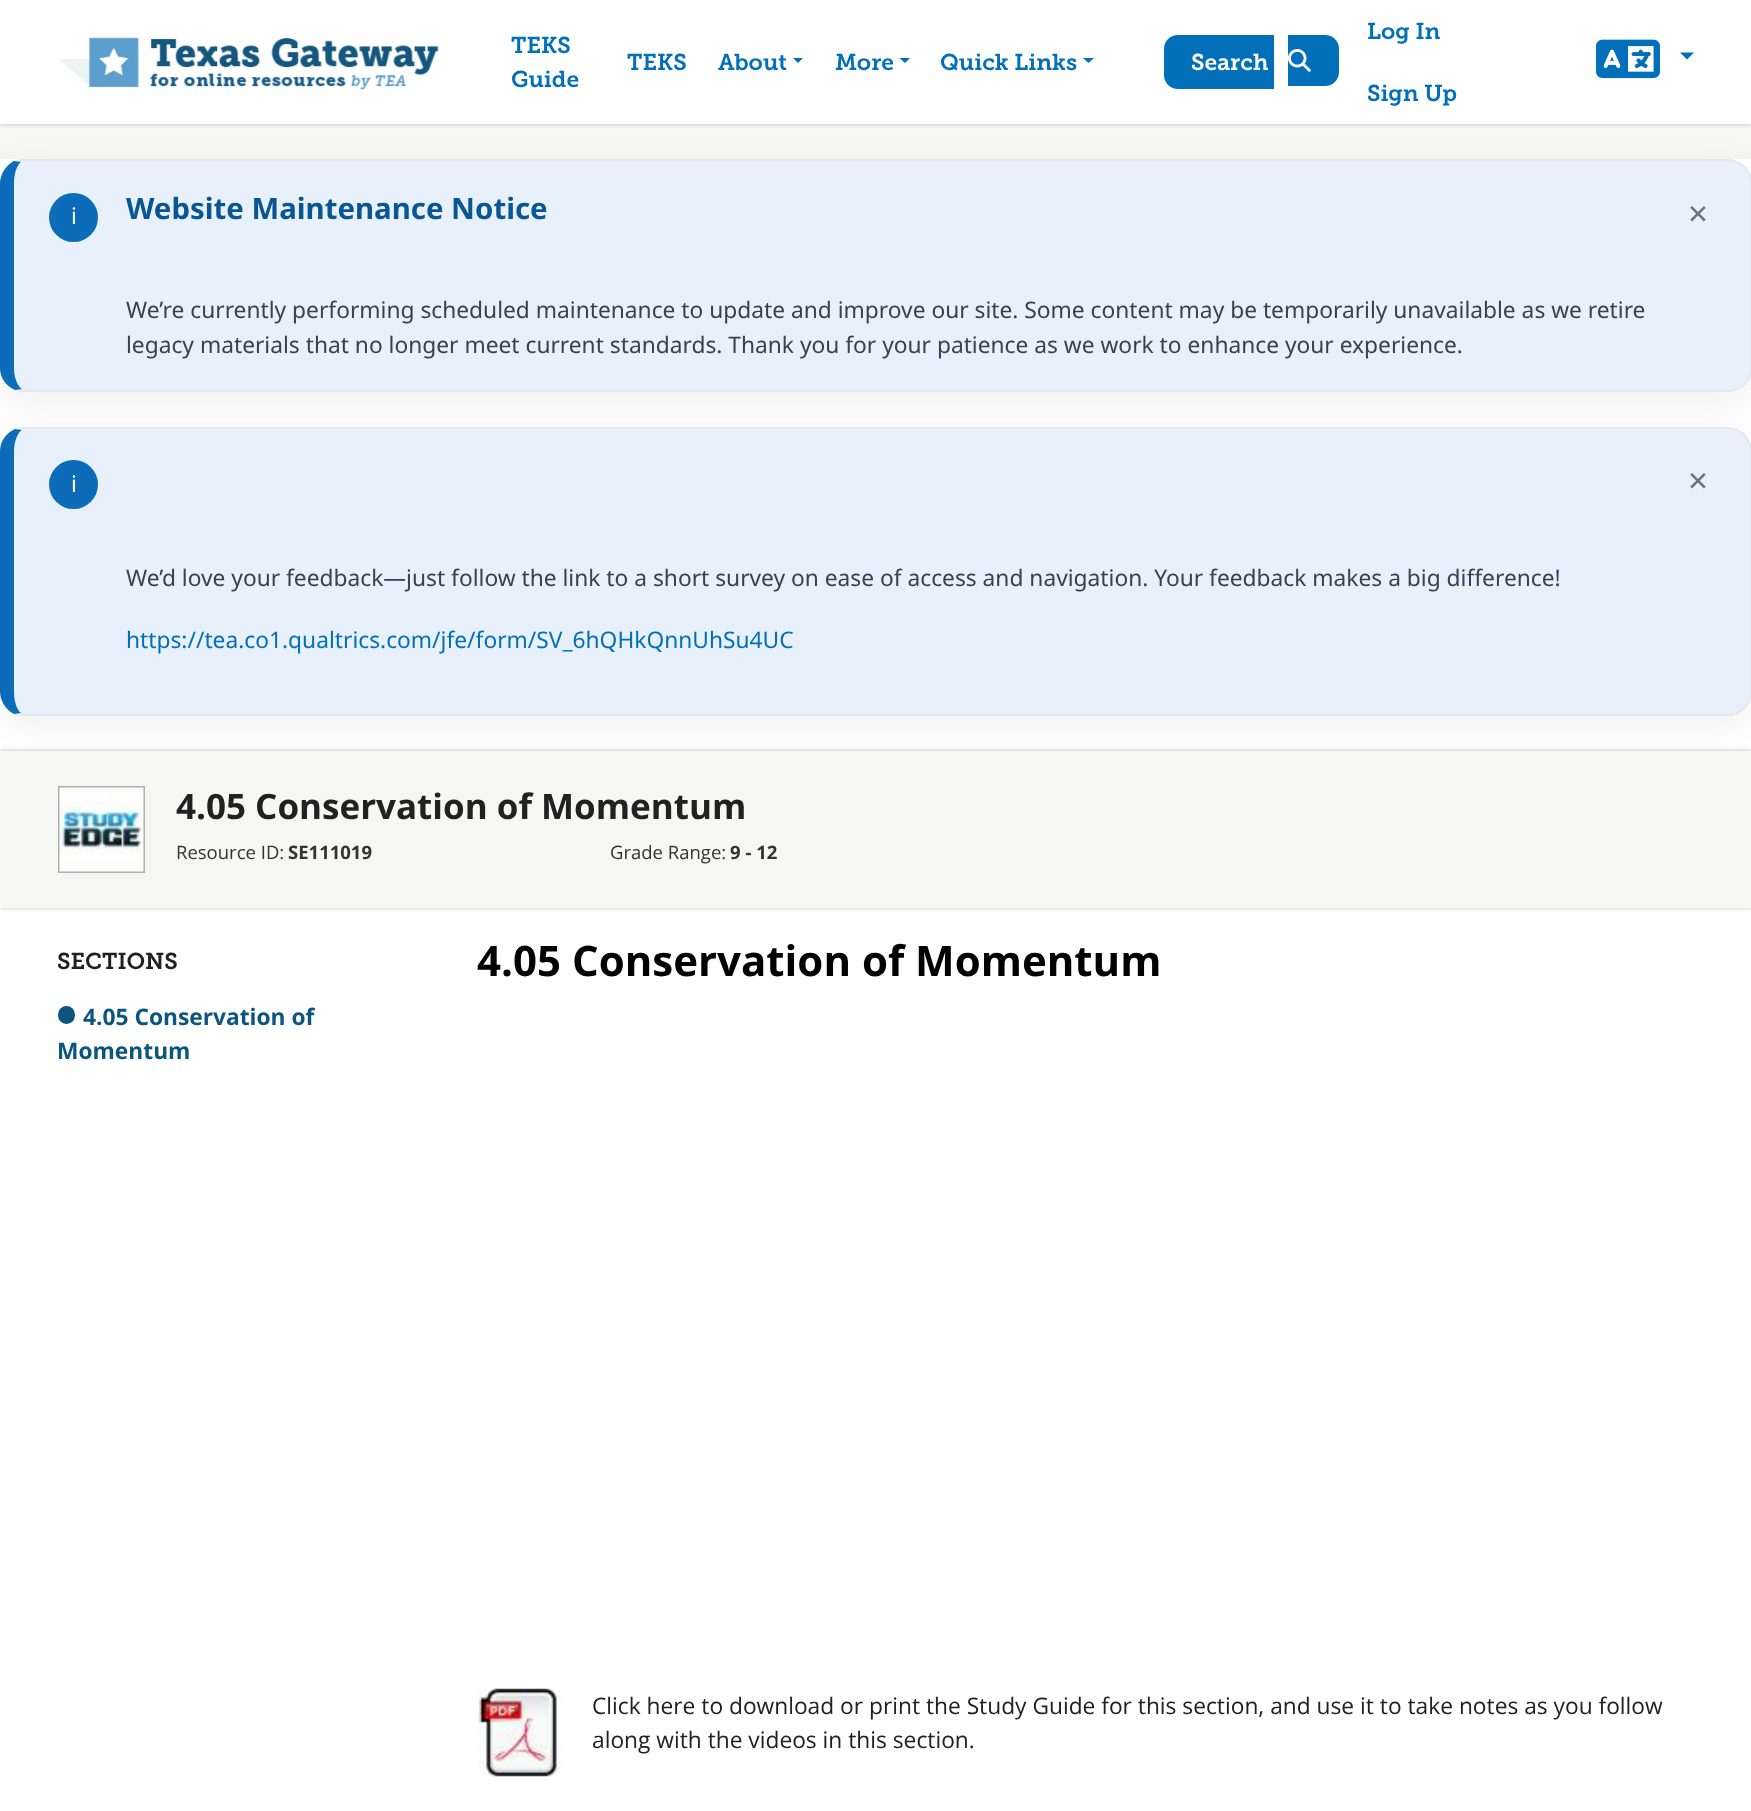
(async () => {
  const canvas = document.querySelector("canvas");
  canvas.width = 1751;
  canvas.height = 1811;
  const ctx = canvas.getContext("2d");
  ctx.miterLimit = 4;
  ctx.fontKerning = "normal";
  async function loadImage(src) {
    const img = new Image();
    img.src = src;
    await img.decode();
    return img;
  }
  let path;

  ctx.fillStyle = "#f6f6f5";
  ctx.fillRect(0, 0, 1751, 1811);
  ctx.fillStyle = "#bbbbbb";
  ctx.filter = "blur(2px)";
  ctx.beginPath();
  ctx.rect(0, 0, 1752, 124);
  ctx.fill();
  ctx.filter = "none";
  ctx.fillStyle = "#ffffff";
  ctx.fillRect(0, 159, 1751, 1652);
  ctx.fillStyle = "rgba(0, 0, 0, 0.06)";
  ctx.filter = "blur(17.5px)";
  ctx.beginPath();
  ctx.roundRect(0, 170, 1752, 233, 25);
  ctx.fill();
  ctx.filter = "none";
  ctx.fillStyle = "#ffffff";
  ctx.fillRect(0, 0, 1751, 124);
  ctx.drawImage(await loadImage("img/1.png"), 59, 37, 380, 53);
  ctx.fillStyle = "#016fb9";
  path = new Path2D("M793 58H803L798 63Z");
  ctx.fill(path);
  path = new Path2D("M899.5 58H910L905 63Z");
  ctx.fill(path);
  path = new Path2D("M1083 58H1094L1088.5 63Z");
  ctx.fill(path);
  ctx.beginPath();
  ctx.roundRect(1164, 35, 110, 54, [14, 0, 0, 14]);
  ctx.fill();
  ctx.beginPath();
  ctx.roundRect(1288, 35, 51, 51, [0, 14, 14, 0]);
  ctx.fill();
  ctx.drawImage(await loadImage("img/2.png"), 1288, 49, 23, 23);
  ctx.drawImage(await loadImage("img/3.png"), 1596, 39, 64, 40);
  path = new Path2D("M1680 52.5H1694L1687 59.5Z");
  ctx.fill(path);
  ctx.fillStyle = "#e8f1fb";
  path = new Path2D("M24 161H1727C1740 161 1750 171 1750 184V368C1750 380 1740 390 1727 390H24C19 390 14 380 14 368V184C14 171 19 161 24 161Z");
  ctx.fill(path);
  ctx.fillStyle = "#e5e7eb";
  path = new Path2D("M24 161L21 162L14 161L21 159H1731C1736 160 1741 163 1745 166L1743 168C1739 164 1734 161 1727 161Z");
  ctx.fill(path);
  path = new Path2D("M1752 371C1751 377 1748 381 1745 385L1743 384C1747 380 1750 374 1750 368V184C1750 178 1748 172 1743 168L1745 166C1748 170 1751 175 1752 180Z");
  ctx.fill(path);
  path = new Path2D("M24 392H1727C1734 392 1740 389 1745 385L1743 384C1739 388 1733 390 1727 390H24L22 389L15 390C18 391 21 392 24 392Z");
  ctx.fill(path);
  ctx.fillStyle = "#0d6cb9";
  path = new Path2D("M0 184V368C0 378 6 386 15 390L22 389C18 387 14 378 14 368V184C14 173 17 165 21 162L14 161C6 165 0 174 0 184Z");
  ctx.fill(path);
  ctx.beginPath();
  ctx.arc(73.5, 217.5, 24.5, 0, Math.PI * 2);
  ctx.fill();
  ctx.fillStyle = "rgba(0, 0, 0, 0.06)";
  ctx.filter = "blur(17.5px)";
  ctx.beginPath();
  ctx.roundRect(0, 438, 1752, 288, 25);
  ctx.fill();
  ctx.filter = "none";
  ctx.fillStyle = "#e8f1fb";
  path = new Path2D("M24 429H1727C1740 429 1750 439 1750 452V691C1750 704 1740 714 1727 714H24C19 714 14 704 14 691V452C14 439 19 429 24 429Z");
  ctx.fill(path);
  ctx.fillStyle = "#e5e7eb";
  path = new Path2D("M24 427C21 427 18 428 15 429L22 430L24 429H1727C1733 429 1739 431 1743 436L1745 434C1740 430 1734 427 1727 427Z");
  ctx.fill(path);
  path = new Path2D("M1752 695C1751 700 1748 705 1745 709L1743 707C1748 703 1750 698 1750 691V452C1750 445 1747 440 1743 436L1745 434C1748 438 1751 443 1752 448Z");
  ctx.fill(path);
  path = new Path2D("M21 716L14 714L21 713L24 714H1727C1734 714 1739 712 1743 707L1745 709C1741 712 1736 715 1731 716Z");
  ctx.fill(path);
  ctx.fillStyle = "#0d6cb9";
  path = new Path2D("M0 452V691C0 701 6 710 14 714L21 713C17 710 14 702 14 691V452C14 441 18 432 22 430L15 429C6 433 0 441 0 452Z");
  ctx.fill(path);
  ctx.beginPath();
  ctx.arc(73.5, 484.5, 24.5, 0, Math.PI * 2);
  ctx.fill();
  ctx.fillStyle = "#bbbbbb";
  ctx.filter = "blur(2px)";
  ctx.beginPath();
  ctx.rect(0, 751, 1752, 157);
  ctx.fill();
  ctx.filter = "none";
  ctx.fillStyle = "#f6f6f5";
  ctx.fillRect(0, 751, 1751, 157);
  ctx.strokeStyle = "#aeaead";
  ctx.lineWidth = 2;
  ctx.strokeRect(59, 787, 85, 85);
  ctx.drawImage(await loadImage("img/4.png"), 59, 787, 86, 86);
  ctx.fillStyle = "#0c557f";
  ctx.beginPath();
  ctx.roundRect(58, 1006, 17, 18, 8.5);
  ctx.fill();
  ctx.drawImage(await loadImage("img/5.png"), 477, 1688, 85, 89);
  ctx.font = "600 22.75px 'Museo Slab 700'";
  ctx.fillStyle = "#016fb9";
  for (const [text, x, y] of [
    ["TEKS", 511, 53],
    ["Guide", 511, 87],
    ["TEKS", 627, 70],
    ["About", 718, 70],
    ["More", 835, 70],
    ["Quick Links", 940, 70],
  ]) {
    ctx.fillText(text, x, y);
  }
  ctx.fillStyle = "#ffffff";
  ctx.fillText("Search", 1191, 70);
  ctx.fillStyle = "#016fb9";
  ctx.fillText("Log In", 1367, 39);
  ctx.fillText("Sign Up", 1367, 101);
  ctx.font = "22.75px Noto Sans";
  ctx.fillStyle = "#ffffff";
  ctx.fillText("i", 71, 224);
  ctx.font = "bold 29.4px Noto Sans";
  ctx.fillStyle = "#0a5694";
  ctx.fillText("Website Maintenance Notice", 126, 219);
  ctx.font = "35px Noto Sans";
  ctx.fillStyle = "#6b7280";
  ctx.fillText("×", 1688, 226);
  ctx.font = "22.75px Noto Sans";
  ctx.fillStyle = "#374151";
  ctx.fillText("We’re currently performing scheduled maintenance to update and improve our site. Some content may be temporarily unavailable as we retire", 126, 318);
  ctx.fillText("legacy materials that no longer meet current standards. Thank you for your patience as we work to enhance your experience.", 126, 353);
  ctx.fillStyle = "#ffffff";
  ctx.fillText("i", 71, 492);
  ctx.font = "35px Noto Sans";
  ctx.fillStyle = "#6b7280";
  ctx.fillText("×", 1688, 493);
  ctx.font = "22.75px Noto Sans";
  ctx.fillStyle = "#374151";
  ctx.fillText("We’d love your feedback—just follow the link to a short survey on ease of access and navigation. Your feedback makes a big difference!", 126, 586);
  ctx.fillStyle = "#016fb9";
  ctx.fillText("https://tea.co1.qualtrics.com/jfe/form/SV_6hQHkQnnUhSu4UC", 126, 648);
  ctx.font = "bold 35px Open Sans";
  ctx.fillStyle = "#212121";
  ctx.fillText("4.05 Conservation of Momentum", 176, 819);
  ctx.font = "18.5px Open Sans";
  ctx.fillStyle = "#333333";
  ctx.fillText("Resource ID:", 176, 859);
  ctx.font = "bold 18.5px Open Sans";
  ctx.fillText("SE111019", 288, 859);
  ctx.font = "18.5px Open Sans";
  ctx.fillText("Grade Range:", 610, 859);
  ctx.font = "bold 18.5px Open Sans";
  ctx.fillText("9 - 12", 730, 859);
  ctx.font = "600 22.75px 'Museo Slab 700'";
  ctx.fillStyle = "#212121";
  ctx.fillText("SECTIONS", 57, 969);
  ctx.font = "bold 22.75px Open Sans";
  ctx.fillStyle = "#0c557f";
  ctx.fillText("4.05 Conservation of", 83, 1025);
  ctx.fillText("Momentum", 57, 1059);
  ctx.font = "bold 42px Open Sans";
  ctx.fillStyle = "#000000";
  ctx.fillText("4.05 Conservation of Momentum", 477, 976);
  ctx.font = "22.75px Open Sans";
  ctx.fillStyle = "#212121";
  ctx.fillText("Click here to download or print the Study Guide for this section, and use it to take notes as you follow", 592, 1714);
  ctx.fillText("along with the videos in this section.", 592, 1748);
})();
